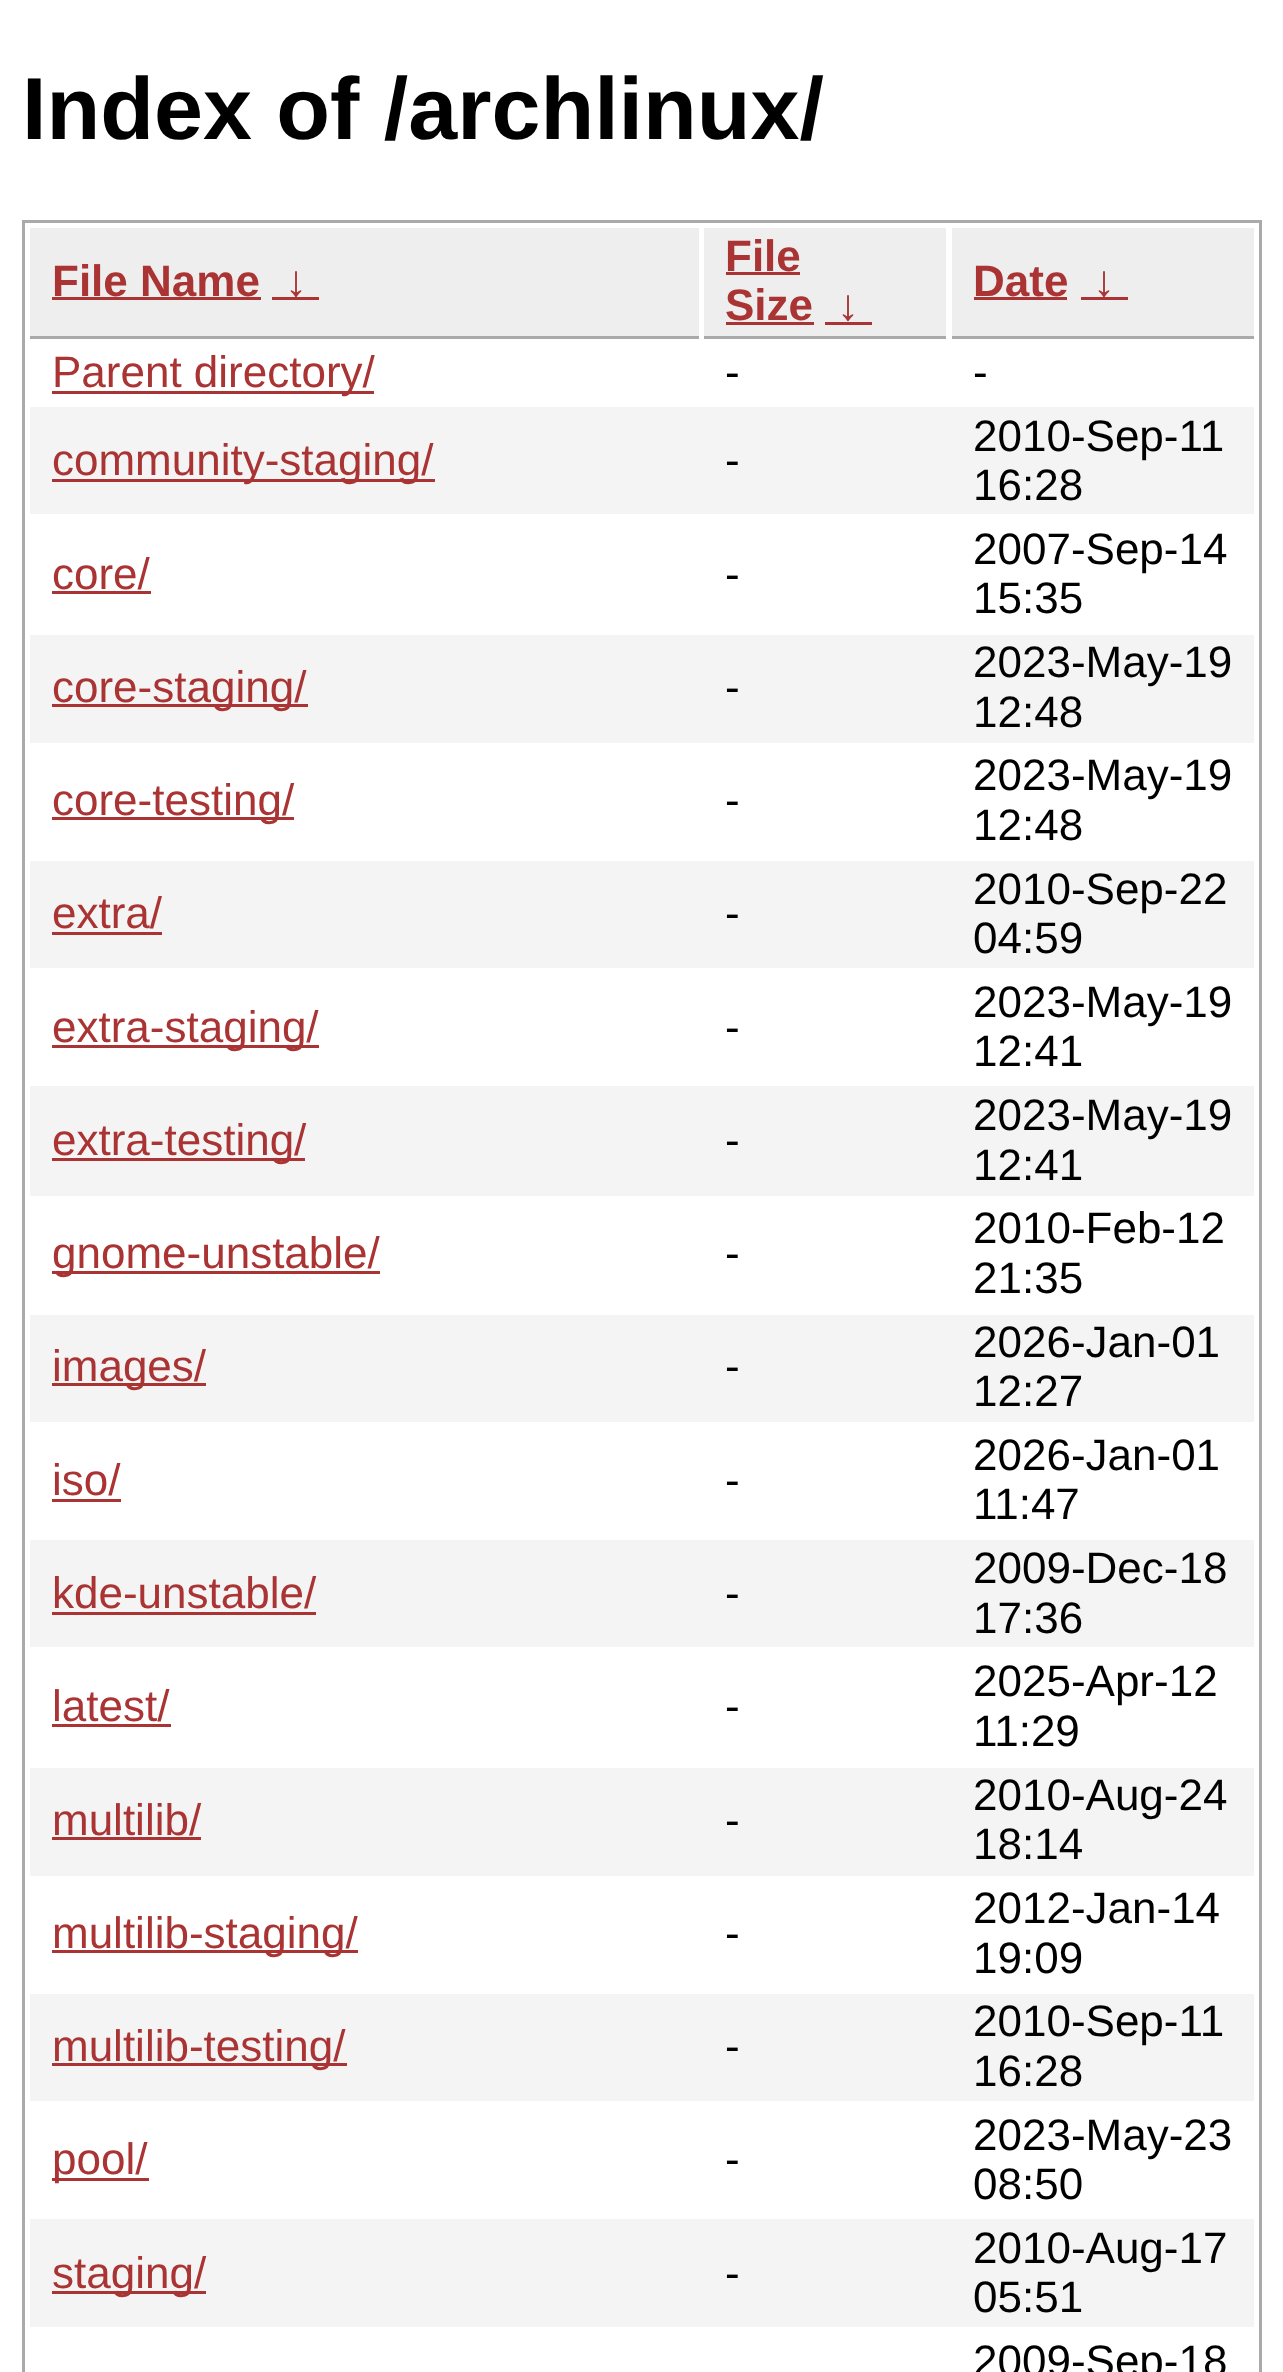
(async () => {
  const canvas = document.querySelector("canvas");
  canvas.width = 1283;
  canvas.height = 2372;
  const ctx = canvas.getContext("2d");
  ctx.miterLimit = 4;
  ctx.fontKerning = "normal";

  ctx.fillStyle = "#ffffff";
  ctx.fillRect(0, 0, 1283, 2372);
  ctx.strokeStyle = "#aaaaaa";
  ctx.lineWidth = 3;
  ctx.strokeRect(23.5, 221.5, 1237, 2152);
  for (const [x, y, w, h, color] of [
    [30, 228, 669, 108, "#eeeeee"],
    [30, 336, 669, 3, "#aaaaaa"],
    [52, 297, 209, 3, "#aa3333"],
    [272, 297, 47, 3, "#aa3333"],
    [704, 228, 242, 108, "#eeeeee"],
    [704, 336, 242, 3, "#aaaaaa"],
    [726, 272, 74, 3, "#aa3333"],
    [726, 322, 88, 3, "#aa3333"],
    [825, 322, 47, 3, "#aa3333"],
    [952, 228, 302, 108, "#eeeeee"],
    [952, 336, 302, 3, "#aaaaaa"],
    [974, 297, 93, 3, "#aa3333"],
    [1081, 297, 47, 3, "#aa3333"],
    [52, 391, 322, 3, "#aa3333"],
    [30, 407, 1224, 107, "#f4f4f4"],
    [52, 479, 383, 3, "#aa3333"],
    [52, 591, 99, 3, "#aa3333"],
    [30, 635, 1224, 108, "#f4f4f4"],
    [52, 704, 256, 3, "#aa3333"],
    [52, 817, 242, 3, "#aa3333"],
    [30, 861, 1224, 107, "#f4f4f4"],
    [52, 932, 110, 3, "#aa3333"],
    [52, 1045, 267, 3, "#aa3333"],
    [30, 1086, 1224, 110, "#f4f4f4"],
    [52, 1158, 253, 3, "#aa3333"],
    [52, 1271, 328, 3, "#aa3333"],
    [30, 1315, 1224, 107, "#f4f4f4"],
    [52, 1383, 154, 3, "#aa3333"],
    [52, 1499, 69, 3, "#aa3333"],
    [30, 1540, 1224, 107, "#f4f4f4"],
    [52, 1612, 264, 3, "#aa3333"],
    [52, 1724, 119, 3, "#aa3333"],
    [30, 1768, 1224, 108, "#f4f4f4"],
    [52, 1837, 149, 3, "#aa3333"],
    [52, 1950, 306, 3, "#aa3333"],
    [30, 1994, 1224, 107, "#f4f4f4"],
    [52, 2063, 295, 3, "#aa3333"],
    [52, 2178, 97, 3, "#aa3333"],
    [30, 2219, 1224, 108, "#f4f4f4"],
    [52, 2291, 154, 3, "#aa3333"],
  ]) {
    ctx.fillStyle = color;
    ctx.fillRect(x, y, w, h);
  }
  ctx.font = "bold 88px Liberation Sans";
  ctx.fillStyle = "#000000";
  ctx.fillText("Index of /archlinux/", 22, 139);
  ctx.font = "bold 44px Liberation Sans";
  ctx.fillStyle = "#aa3333";
  for (const [text, x, y] of [
    ["File Name", 52, 296],
    ["↓", 285, 296],
    ["File", 725, 271],
    ["Size", 725, 320],
    ["↓", 837, 320],
    ["Date", 973, 296],
    ["↓", 1093, 296],
  ]) {
    ctx.fillText(text, x, y);
  }
  ctx.font = "44px Liberation Sans";
  ctx.fillText("Parent directory/", 52, 387);
  ctx.fillStyle = "#000000";
  ctx.fillText("-", 725, 387);
  ctx.fillText("-", 973, 387);
  ctx.fillStyle = "#aa3333";
  ctx.fillText("community-staging/", 52, 475);
  ctx.fillStyle = "#000000";
  for (const [text, x, y] of [
    ["-", 725, 475],
    ["2010-Sep-11", 973, 451],
    ["16:28", 973, 500],
  ]) {
    ctx.fillText(text, x, y);
  }
  ctx.fillStyle = "#aa3333";
  ctx.fillText("core/", 52, 589);
  ctx.fillStyle = "#000000";
  for (const [text, x, y] of [
    ["-", 725, 589],
    ["2007-Sep-14", 973, 564],
    ["15:35", 973, 613],
  ]) {
    ctx.fillText(text, x, y);
  }
  ctx.fillStyle = "#aa3333";
  ctx.fillText("core-staging/", 52, 702);
  ctx.fillStyle = "#000000";
  for (const [text, x, y] of [
    ["-", 725, 702],
    ["2023-May-19", 973, 677],
    ["12:48", 973, 727],
  ]) {
    ctx.fillText(text, x, y);
  }
  ctx.fillStyle = "#aa3333";
  ctx.fillText("core-testing/", 52, 815);
  ctx.fillStyle = "#000000";
  for (const [text, x, y] of [
    ["-", 725, 815],
    ["2023-May-19", 973, 790],
    ["12:48", 973, 840],
  ]) {
    ctx.fillText(text, x, y);
  }
  ctx.fillStyle = "#aa3333";
  ctx.fillText("extra/", 52, 928);
  ctx.fillStyle = "#000000";
  for (const [text, x, y] of [
    ["-", 725, 928],
    ["2010-Sep-22", 973, 904],
    ["04:59", 973, 953],
  ]) {
    ctx.fillText(text, x, y);
  }
  ctx.fillStyle = "#aa3333";
  ctx.fillText("extra-staging/", 52, 1042);
  ctx.fillStyle = "#000000";
  for (const [text, x, y] of [
    ["-", 725, 1042],
    ["2023-May-19", 973, 1017],
    ["12:41", 973, 1066],
  ]) {
    ctx.fillText(text, x, y);
  }
  ctx.fillStyle = "#aa3333";
  ctx.fillText("extra-testing/", 52, 1155);
  ctx.fillStyle = "#000000";
  for (const [text, x, y] of [
    ["-", 725, 1155],
    ["2023-May-19", 973, 1130],
    ["12:41", 973, 1180],
  ]) {
    ctx.fillText(text, x, y);
  }
  ctx.fillStyle = "#aa3333";
  ctx.fillText("gnome-unstable/", 52, 1268);
  ctx.fillStyle = "#000000";
  for (const [text, x, y] of [
    ["-", 725, 1268],
    ["2010-Feb-12", 973, 1243],
    ["21:35", 973, 1293],
  ]) {
    ctx.fillText(text, x, y);
  }
  ctx.fillStyle = "#aa3333";
  ctx.fillText("images/", 52, 1381);
  ctx.fillStyle = "#000000";
  for (const [text, x, y] of [
    ["-", 725, 1381],
    ["2026-Jan-01", 973, 1357],
    ["12:27", 973, 1406],
  ]) {
    ctx.fillText(text, x, y);
  }
  ctx.fillStyle = "#aa3333";
  ctx.fillText("iso/", 52, 1495);
  ctx.fillStyle = "#000000";
  for (const [text, x, y] of [
    ["-", 725, 1495],
    ["2026-Jan-01", 973, 1470],
    ["11:47", 973, 1519],
  ]) {
    ctx.fillText(text, x, y);
  }
  ctx.fillStyle = "#aa3333";
  ctx.fillText("kde-unstable/", 52, 1608);
  ctx.fillStyle = "#000000";
  for (const [text, x, y] of [
    ["-", 725, 1608],
    ["2009-Dec-18", 973, 1583],
    ["17:36", 973, 1633],
  ]) {
    ctx.fillText(text, x, y);
  }
  ctx.fillStyle = "#aa3333";
  ctx.fillText("latest/", 52, 1721);
  ctx.fillStyle = "#000000";
  for (const [text, x, y] of [
    ["-", 725, 1721],
    ["2025-Apr-12", 973, 1696],
    ["11:29", 973, 1746],
  ]) {
    ctx.fillText(text, x, y);
  }
  ctx.fillStyle = "#aa3333";
  ctx.fillText("multilib/", 52, 1835);
  ctx.fillStyle = "#000000";
  for (const [text, x, y] of [
    ["-", 725, 1835],
    ["2010-Aug-24", 973, 1810],
    ["18:14", 973, 1859],
  ]) {
    ctx.fillText(text, x, y);
  }
  ctx.fillStyle = "#aa3333";
  ctx.fillText("multilib-staging/", 52, 1948);
  ctx.fillStyle = "#000000";
  for (const [text, x, y] of [
    ["-", 725, 1948],
    ["2012-Jan-14", 973, 1923],
    ["19:09", 973, 1973],
  ]) {
    ctx.fillText(text, x, y);
  }
  ctx.fillStyle = "#aa3333";
  ctx.fillText("multilib-testing/", 52, 2061);
  ctx.fillStyle = "#000000";
  for (const [text, x, y] of [
    ["-", 725, 2061],
    ["2010-Sep-11", 973, 2036],
    ["16:28", 973, 2086],
  ]) {
    ctx.fillText(text, x, y);
  }
  ctx.fillStyle = "#aa3333";
  ctx.fillText("pool/", 52, 2174);
  ctx.fillStyle = "#000000";
  for (const [text, x, y] of [
    ["-", 725, 2174],
    ["2023-May-23", 973, 2150],
    ["08:50", 973, 2199],
  ]) {
    ctx.fillText(text, x, y);
  }
  ctx.fillStyle = "#aa3333";
  ctx.fillText("staging/", 52, 2288);
  ctx.fillStyle = "#000000";
  for (const [text, x, y] of [
    ["-", 725, 2288],
    ["2010-Aug-17", 973, 2263],
    ["05:51", 973, 2312],
    ["2009-Sep-18", 973, 2376],
  ]) {
    ctx.fillText(text, x, y);
  }
})();
